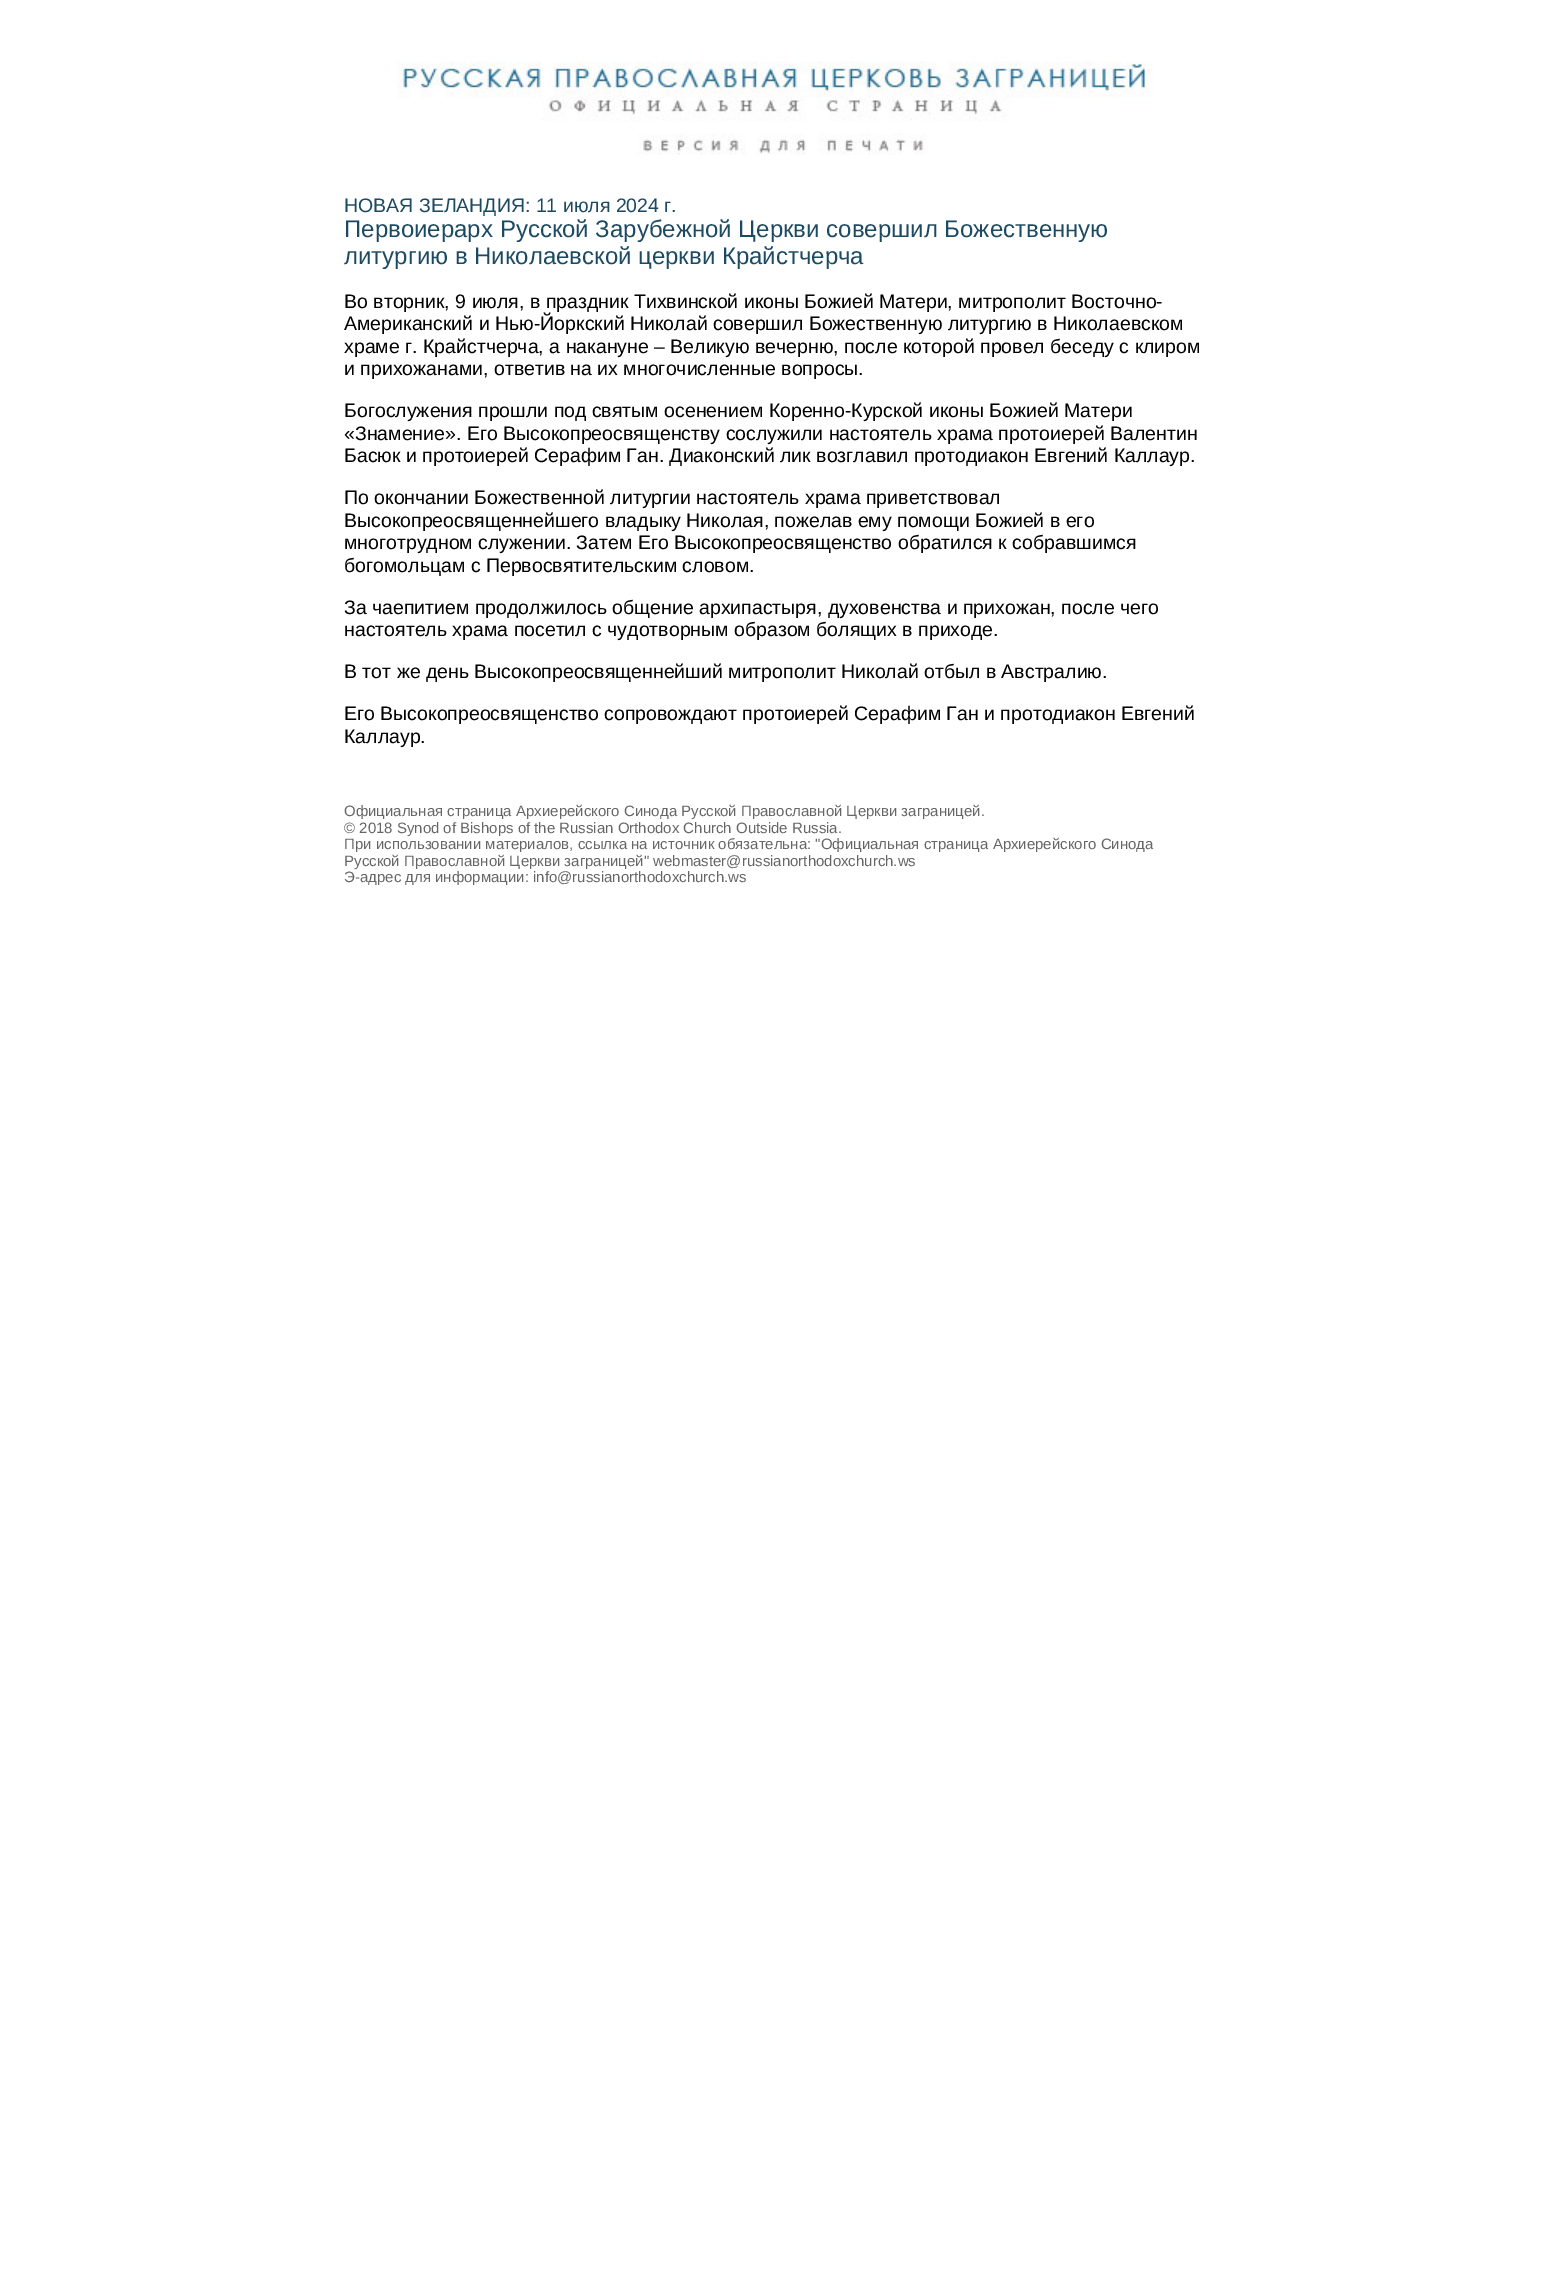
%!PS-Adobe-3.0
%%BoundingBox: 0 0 1551 2271
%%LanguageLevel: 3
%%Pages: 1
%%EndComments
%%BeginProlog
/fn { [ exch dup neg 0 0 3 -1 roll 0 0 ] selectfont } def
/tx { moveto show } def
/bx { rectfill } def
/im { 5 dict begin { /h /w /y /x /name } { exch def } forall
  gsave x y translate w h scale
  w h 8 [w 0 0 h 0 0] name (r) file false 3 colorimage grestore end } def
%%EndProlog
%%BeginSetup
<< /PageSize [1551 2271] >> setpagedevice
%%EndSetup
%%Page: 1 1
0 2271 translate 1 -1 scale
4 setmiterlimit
1 setgray
0 0 1551 2271 bx
(image0.raw) 397 61 757 94 im
/LiberationSans-Regular 19.5 fn
0.11 0.29 0.384 setrgbcolor
(НОВАЯ ЗЕЛАНДИЯ: 11 июля 2024 г.) 344 212 tx
/LiberationSans-Regular 24 fn
(Первоиерарх Русской Зарубежной Церкви совершил Божественную) 344 237 tx
(литургию в Николаевской церкви Крайстчерча) 344 264 tx
/LiberationSans-Regular 19.5 fn
0 setgray
(Во вторник, 9 июля, в праздник Тихвинской иконы Божией Матери, митрополит Восточно-) 344 308 tx
(Американский и Нью-Йоркский Николай совершил Божественную литургию в Николаевском) 344 330 tx
(храме г. Крайстчерча, а накануне – Великую вечерню, после которой провел беседу с клиром) 344 353 tx
(и прихожанами, ответив на их многочисленные вопросы.) 344 375 tx
(Богослужения прошли под святым осенением Коренно-Курской иконы Божией Матери) 344 417 tx
(«Знамение». Его Высокопреосвященству сослужили настоятель храма протоиерей Валентин) 344 440 tx
(Басюк и протоиерей Серафим Ган. Диаконский лик возглавил протодиакон Евгений Каллаур.) 344 462 tx
(По окончании Божественной литургии настоятель храма приветствовал) 344 504 tx
(Высокопреосвященнейшего владыку Николая, пожелав ему помощи Божией в его) 344 527 tx
(многотрудном служении. Затем Его Высокопреосвященство обратился к собравшимся) 344 549 tx
(богомольцам с Первосвятительским словом.) 344 572 tx
(За чаепитием продолжилось общение архипастыря, духовенства и прихожан, после чего) 344 614 tx
(настоятель храма посетил с чудотворным образом болящих в приходе.) 344 636 tx
(В тот же день Высокопреосвященнейший митрополит Николай отбыл в Австралию.) 344 678 tx
(Его Высокопреосвященство сопровождают протоиерей Серафим Ган и протодиакон Евгений) 344 720 tx
(Каллаур.) 344 743 tx
/LiberationSans-Regular 15 fn
0.4 setgray
(Официальная страница Архиерейского Синода Русской Православной Церкви заграницей.) 344 816 tx
(© 2018 Synod of Bishops of the Russian Orthodox Church Outside Russia.) 344 833 tx
(При использовании материалов, ссылка на источник обязательна: "Официальная страница Архиерейского Синода) 344 849 tx
(Русской Православной Церкви заграницей" webmaster@russianorthodoxchurch.ws) 344 866 tx
(Э-адрес для информации: info@russianorthodoxchurch.ws) 344 882 tx
showpage
%%EOF
